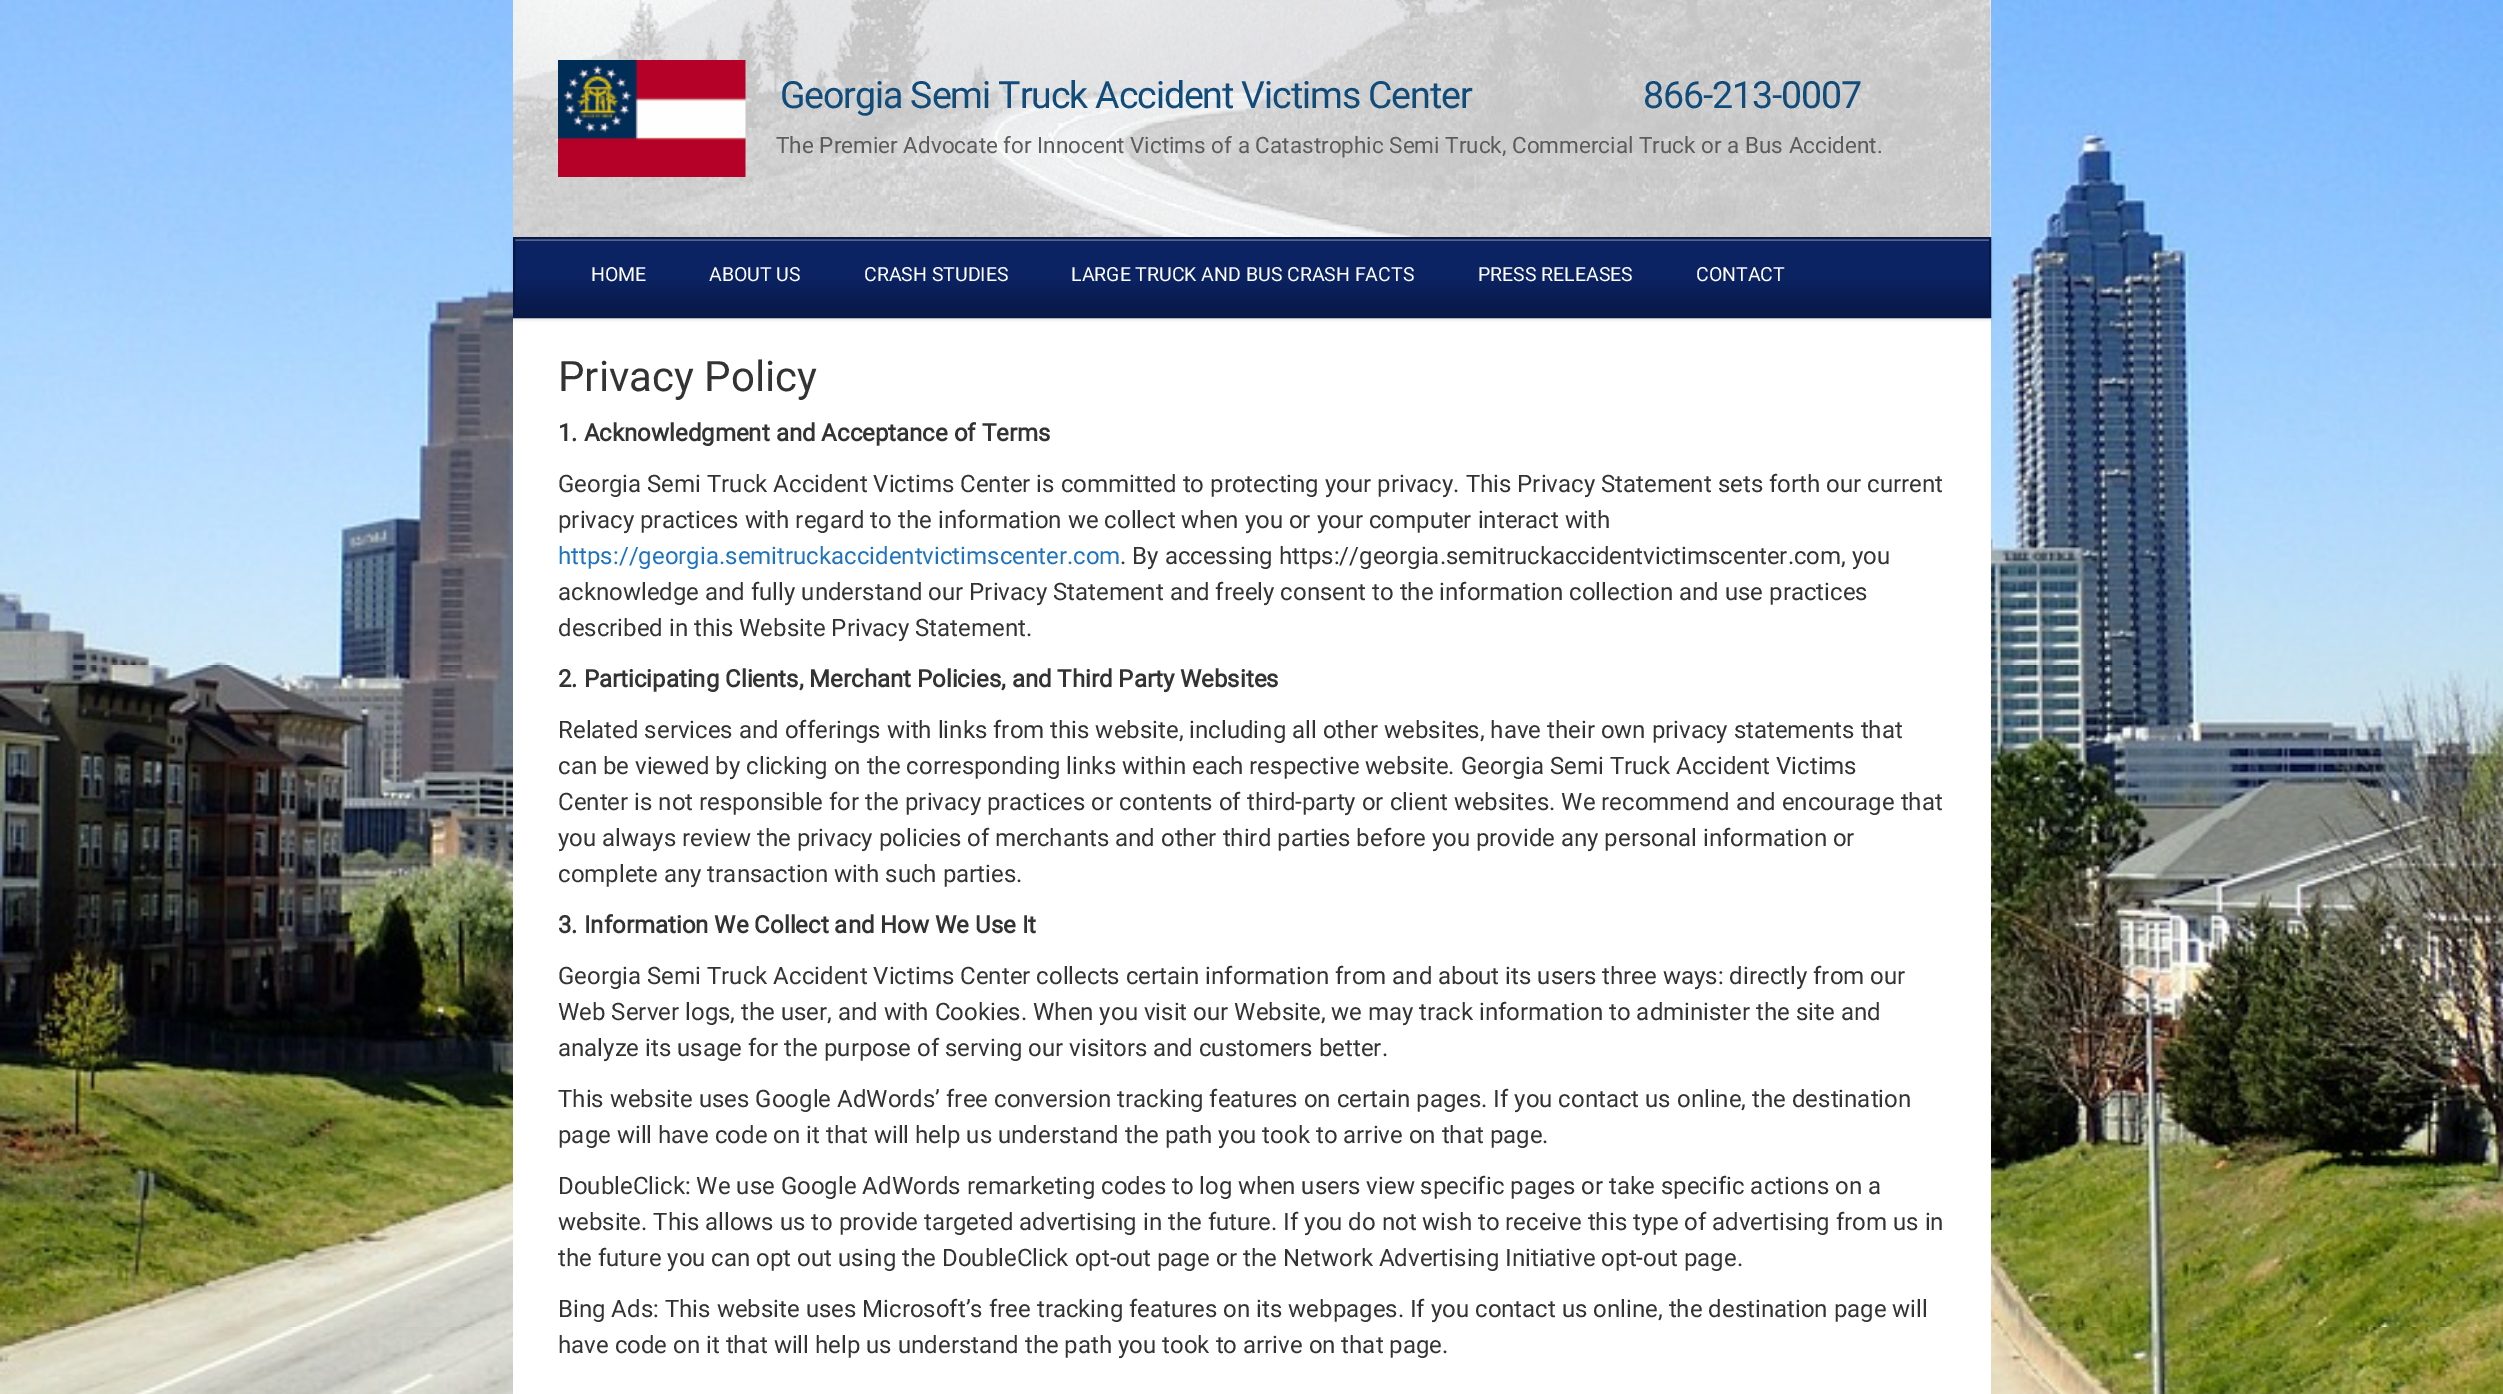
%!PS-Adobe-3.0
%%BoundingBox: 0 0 2503 1394
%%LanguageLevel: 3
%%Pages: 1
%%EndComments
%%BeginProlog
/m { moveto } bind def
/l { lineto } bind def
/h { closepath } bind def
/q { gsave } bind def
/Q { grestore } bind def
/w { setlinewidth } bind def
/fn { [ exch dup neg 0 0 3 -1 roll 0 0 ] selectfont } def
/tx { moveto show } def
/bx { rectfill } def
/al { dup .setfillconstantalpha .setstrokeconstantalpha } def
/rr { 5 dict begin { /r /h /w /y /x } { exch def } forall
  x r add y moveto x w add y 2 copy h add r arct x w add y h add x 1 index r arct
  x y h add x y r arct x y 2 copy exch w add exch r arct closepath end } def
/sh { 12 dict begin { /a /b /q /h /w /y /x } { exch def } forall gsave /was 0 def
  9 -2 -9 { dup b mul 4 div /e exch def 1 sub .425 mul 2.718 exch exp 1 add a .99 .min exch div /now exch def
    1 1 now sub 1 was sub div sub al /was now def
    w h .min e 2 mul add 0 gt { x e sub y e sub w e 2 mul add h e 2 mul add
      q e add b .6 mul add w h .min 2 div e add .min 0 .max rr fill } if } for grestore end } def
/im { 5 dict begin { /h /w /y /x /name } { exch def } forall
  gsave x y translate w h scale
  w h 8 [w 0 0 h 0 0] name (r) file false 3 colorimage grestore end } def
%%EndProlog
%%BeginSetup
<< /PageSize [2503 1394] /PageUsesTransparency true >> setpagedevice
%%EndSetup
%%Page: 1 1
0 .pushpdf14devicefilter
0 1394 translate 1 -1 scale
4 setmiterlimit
1 setgray
0 0 2503 1394 bx
(image0.raw) 0 0 2503 1394 im
0.976 setgray
1990 0 1 237 bx
1 setgray
513 318 1478 1076 bx
0 setgray
513 239 1478 81 0 1.5 0.1 sh
(image1.raw) 513 0 1478 237 im
(image2.raw) 558 60 188 117 im
/Roboto-Regular 37.5 fn
0.067 0.294 0.478 setrgbcolor
780 108 m -1.12 0 (Georgia Semi Truck Accident Victims Center                     866-213-0007) ashow
/Roboto-Regular 22.5 fn
0.357 setgray
(The Premier Advocate for Innocent Victims of a Catastrophic Semi Truck, Commercial Truck or a Bus Accident.) 776 153 tx
q 515 241 m 1989 241 l 1989 316 l 515 316 l h clip newpath
<< /ShadingType 2 /ColorSpace /DeviceRGB /Coords [1252 238 1252 317] /Extend [true true] /Function << /FunctionType 3 /Domain [0 1] /Functions [<< /FunctionType 2 /Domain [0 1] /C0 [0.043 0.137 0.388] /C1 [0.043 0.137 0.388] /N 1 >> << /FunctionType 2 /Domain [0 1] /C0 [0.043 0.137 0.388] /C1 [0.031 0.094 0.271] /N 1 >>] /Bounds [0.5] /Encode [0 1 0 1] >> >> shfill Q
0.329 0.396 0.573 setrgbcolor
515 239 1474 2 bx
0.031 0.094 0.271 setrgbcolor
2 w
514 238 1476 79 rectstroke
/Roboto-Regular 19.5 fn
1 setgray
(HOME) 591 281 tx
(ABOUT US) 709 281 tx
(CRASH STUDIES) 864 281 tx
(LARGE TRUCK AND BUS CRASH FACTS) 1071 281 tx
(PRESS RELEASES) 1478 281 tx
(CONTACT) 1696 281 tx
/Roboto-Regular 42 fn
0.2 setgray
(Privacy Policy) 558 391 tx
/Roboto-Bold 24 fn
(1. Acknowledgment and Acceptance of Terms) 558 441 tx
/Roboto-Regular 24 fn
(Georgia Semi Truck Accident Victims Center is committed to protecting your privacy. This Privacy Statement sets forth our current) 558 492 tx
(privacy practices with regard to the information we collect when you or your computer interact with) 558 528 tx
0.118 0.451 0.745 setrgbcolor
(https://georgia.semitruckaccidentvictimscenter.com) 558 564 tx
0.2 setgray
(. By accessing https://georgia.semitruckaccidentvictimscenter.com, you) 1120 564 tx
(acknowledge and fully understand our Privacy Statement and freely consent to the information collection and use practices) 558 600 tx
(described in this Website Privacy Statement.) 558 636 tx
/Roboto-Bold 24 fn
(2. Participating Clients, Merchant Policies, and Third Party Websites) 558 687 tx
/Roboto-Regular 24 fn
(Related services and offerings with links from this website, including all other websites, have their own privacy statements that) 558 738 tx
(can be viewed by clicking on the corresponding links within each respective website. Georgia Semi Truck Accident Victims) 558 774 tx
(Center is not responsible for the privacy practices or contents of third-party or client websites. We recommend and encourage that) 558 810 tx
(you always review the privacy policies of merchants and other third parties before you provide any personal information or) 558 846 tx
(complete any transaction with such parties.) 558 882 tx
/Roboto-Bold 24 fn
(3. Information We Collect and How We Use It) 558 933 tx
/Roboto-Regular 24 fn
(Georgia Semi Truck Accident Victims Center collects certain information from and about its users three ways: directly from our) 558 984 tx
(Web Server logs, the user, and with Cookies. When you visit our Website, we may track information to administer the site and) 558 1020 tx
(analyze its usage for the purpose of serving our visitors and customers better.) 558 1056 tx
(This website uses Google AdWords’ free conversion tracking features on certain pages. If you contact us online, the destination) 558 1107 tx
(page will have code on it that will help us understand the path you took to arrive on that page.) 558 1143 tx
(DoubleClick: We use Google AdWords remarketing codes to log when users view specific pages or take specific actions on a) 558 1194 tx
(website. This allows us to provide targeted advertising in the future. If you do not wish to receive this type of advertising from us in) 558 1230 tx
(the future you can opt out using the DoubleClick opt-out page or the Network Advertising Initiative opt-out page.) 558 1266 tx
(Bing Ads: This website uses Microsoft’s free tracking features on its webpages. If you contact us online, the destination page will) 558 1317 tx
(have code on it that will help us understand the path you took to arrive on that page.) 558 1353 tx
.poppdf14devicefilter showpage
%%EOF
